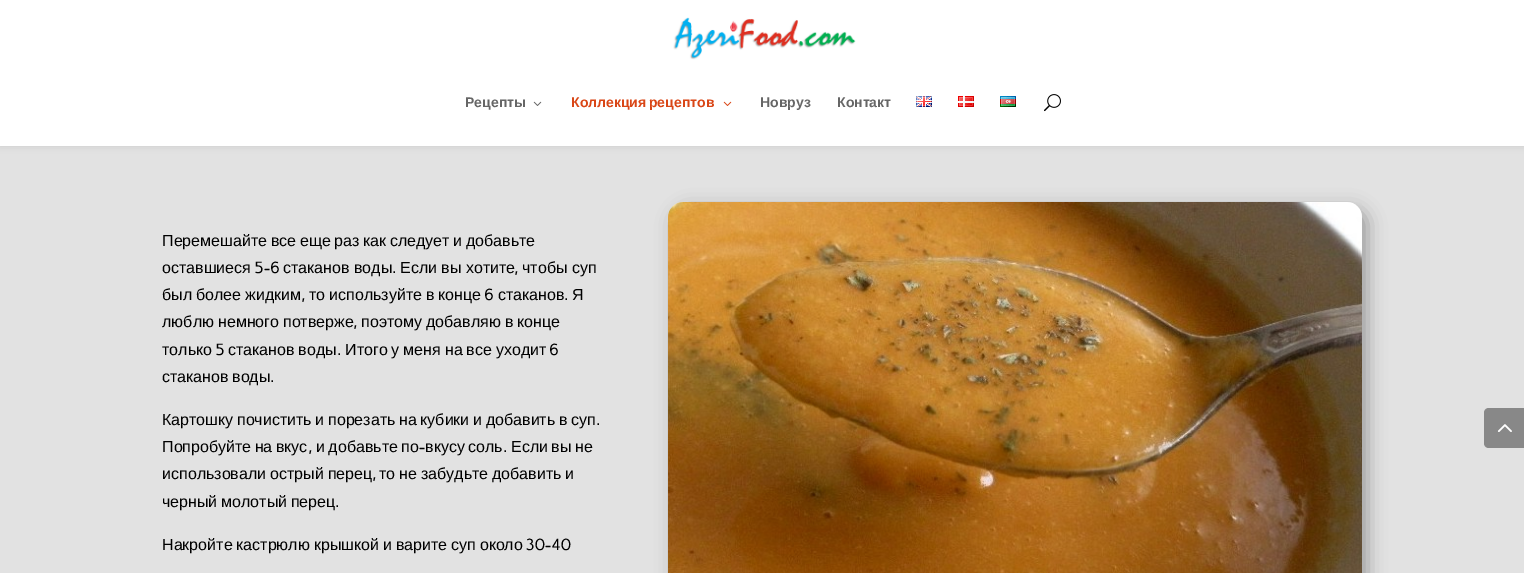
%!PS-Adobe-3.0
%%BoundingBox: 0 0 1524 573
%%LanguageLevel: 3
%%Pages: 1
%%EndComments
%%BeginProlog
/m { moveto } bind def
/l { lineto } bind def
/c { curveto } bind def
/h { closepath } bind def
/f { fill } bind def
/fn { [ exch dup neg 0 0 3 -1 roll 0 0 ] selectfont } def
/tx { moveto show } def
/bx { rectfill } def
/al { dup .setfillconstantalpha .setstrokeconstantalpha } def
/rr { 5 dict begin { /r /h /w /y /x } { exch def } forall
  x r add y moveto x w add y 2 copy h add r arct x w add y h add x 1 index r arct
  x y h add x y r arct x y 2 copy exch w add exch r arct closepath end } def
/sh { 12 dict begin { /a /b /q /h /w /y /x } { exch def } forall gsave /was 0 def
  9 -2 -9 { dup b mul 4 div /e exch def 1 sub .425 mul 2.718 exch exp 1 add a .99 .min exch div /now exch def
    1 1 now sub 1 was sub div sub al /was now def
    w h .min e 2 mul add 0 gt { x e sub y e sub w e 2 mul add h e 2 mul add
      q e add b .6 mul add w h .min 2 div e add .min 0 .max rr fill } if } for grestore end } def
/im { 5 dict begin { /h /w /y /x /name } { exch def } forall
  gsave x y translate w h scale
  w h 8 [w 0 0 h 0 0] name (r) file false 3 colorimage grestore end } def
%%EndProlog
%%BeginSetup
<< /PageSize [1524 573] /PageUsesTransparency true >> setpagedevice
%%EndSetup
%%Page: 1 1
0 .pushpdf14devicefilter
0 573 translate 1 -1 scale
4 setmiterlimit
0.886 setgray
0 0 1524 573 bx
0 setgray
0 0 1524 146 0 3.5 0.1 sh
1 setgray
0 0 1524 146 bx
(image0.raw) 673 17 183 43 im
/LiberationSans-Bold 14 fn
0.4 setgray
(Рецепты) 465 107 tx
(image1.raw) 533 101 9 5 im
0.851 0.275 0.086 setrgbcolor
571 107 m -1 0 32 (Коллекция рецептов) widthshow
(image2.raw) 723 101 9 5 im
0.4 setgray
(Новруз) 760 107 tx
(Контакт) 837 107 tx
(image3.raw) 916 96 16 11 im
(image4.raw) 958 96 16 11 im
(image5.raw) 1000 96 16 11 im
(image6.raw) 1044 94 17 18 im
/LiberationSans-Regular 16 fn
0 setgray
162 246 m -0.75 0 32 (Перемешайте все еще раз как следует и добавьте) widthshow
(оставшиеся) 162 273 tx
/Carme-Regular 16 fn
(5-6) 254 273 tx
/LiberationSans-Regular 16 fn
(стаканов воды) 283 273 tx
/Carme-Regular 16 fn
(.) 392 273 tx
/LiberationSans-Regular 16 fn
(Если вы хотите) 400 273 tx
/Carme-Regular 16 fn
(,) 514 273 tx
/LiberationSans-Regular 16 fn
(чтобы суп) 522 273 tx
162 300 m -0.5 0 32 (был более жидким) widthshow
/Carme-Regular 16 fn
(,) 301 300 tx
/LiberationSans-Regular 16 fn
309 300 m -0.5 0 32 (то используйте в конце) widthshow
/Carme-Regular 16 fn
(6) 484 300 tx
/LiberationSans-Regular 16 fn
(стаканов) 498 300 tx
/Carme-Regular 16 fn
(.) 564 300 tx
/LiberationSans-Regular 16 fn
(Я) 572 300 tx
162 327 m -0.5 0 32 (люблю немного потверже) widthshow
/Carme-Regular 16 fn
(,) 353 327 tx
/LiberationSans-Regular 16 fn
361 327 m -0.5 0 32 (поэтому добавляю в конце) widthshow
(только) 162 355 tx
/Carme-Regular 16 fn
(5) 215 355 tx
/LiberationSans-Regular 16 fn
228 355 m -0.5 0 32 (стаканов воды) widthshow
/Carme-Regular 16 fn
(.) 337 355 tx
/LiberationSans-Regular 16 fn
345 355 m -0.5 0 32 (Итого у меня на все уходит) widthshow
/Carme-Regular 16 fn
(6) 549 355 tx
/LiberationSans-Regular 16 fn
162 382 m -0.75 0 32 (стаканов воды) widthshow
/Carme-Regular 16 fn
(.) 270 382 tx
/LiberationSans-Regular 16 fn
162 425 m -0.75 0 32 (Картошку почистить и порезать на кубики и добавить в суп) widthshow
/Carme-Regular 16 fn
(.) 596 425 tx
/LiberationSans-Regular 16 fn
162 452 m -1 0 32 (Попробуйте на вкус) widthshow
316 452 m -1 0 32 (и добавьте по) widthshow
/Carme-Regular 16 fn
(-) 419 452 tx
/LiberationSans-Regular 16 fn
425 452 m -1 0 32 (вкусу соль) widthshow
511 452 m -1 0 32 (Если вы не) widthshow
/Carme-Regular 16 fn
(,) 308 452 tx
(.) 503 452 tx
/LiberationSans-Regular 16 fn
162 479 m -0.5 0 32 (использовали острый перец) widthshow
/Carme-Regular 16 fn
(,) 372 479 tx
/LiberationSans-Regular 16 fn
379 479 m -0.5 0 32 (то не забудьте добавить и) widthshow
162 507 m -0.75 0 32 (черный молотый перец) widthshow
/Carme-Regular 16 fn
(.) 335 507 tx
/LiberationSans-Regular 16 fn
162 550 m -0.5 0 32 (Накройте кастрюлю крышкой и варите суп около) widthshow
/Carme-Regular 16 fn
(30-40) 525 550 tx
674 208 694 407 15 9 0.3 sh
(image7.raw) 668 202 694 371 im
0.533 setgray
1489 408 m 1524 408 l 1524 448 l 1489 448 l 1486 448 1484 446 1484 443 c 1484 413 l 1484 410 1486 408 1489 408 c h f
(image8.raw) 1497 424 15 8 im
.poppdf14devicefilter showpage
%%EOF
